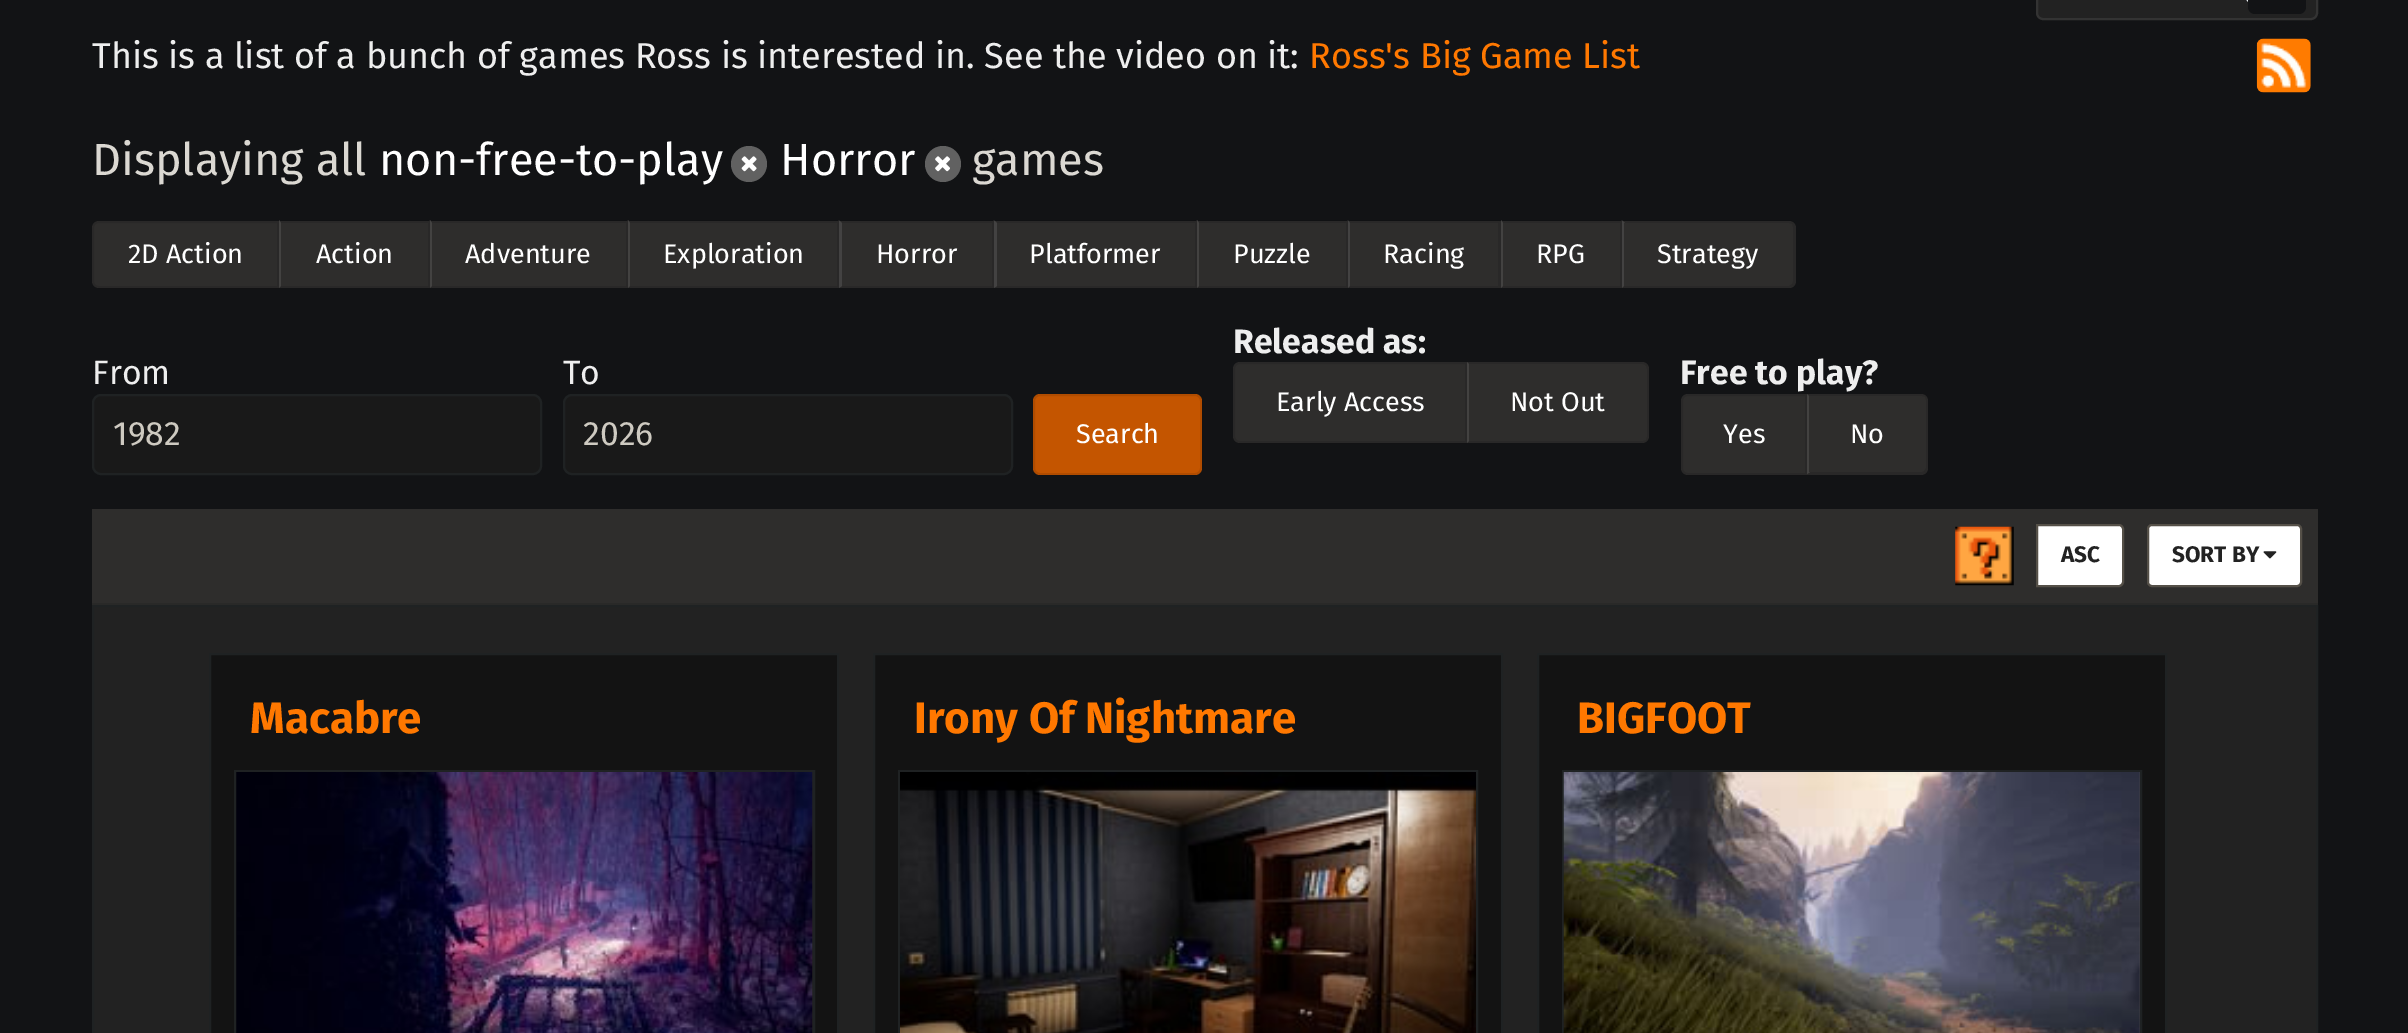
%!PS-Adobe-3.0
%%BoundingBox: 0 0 2408 1033
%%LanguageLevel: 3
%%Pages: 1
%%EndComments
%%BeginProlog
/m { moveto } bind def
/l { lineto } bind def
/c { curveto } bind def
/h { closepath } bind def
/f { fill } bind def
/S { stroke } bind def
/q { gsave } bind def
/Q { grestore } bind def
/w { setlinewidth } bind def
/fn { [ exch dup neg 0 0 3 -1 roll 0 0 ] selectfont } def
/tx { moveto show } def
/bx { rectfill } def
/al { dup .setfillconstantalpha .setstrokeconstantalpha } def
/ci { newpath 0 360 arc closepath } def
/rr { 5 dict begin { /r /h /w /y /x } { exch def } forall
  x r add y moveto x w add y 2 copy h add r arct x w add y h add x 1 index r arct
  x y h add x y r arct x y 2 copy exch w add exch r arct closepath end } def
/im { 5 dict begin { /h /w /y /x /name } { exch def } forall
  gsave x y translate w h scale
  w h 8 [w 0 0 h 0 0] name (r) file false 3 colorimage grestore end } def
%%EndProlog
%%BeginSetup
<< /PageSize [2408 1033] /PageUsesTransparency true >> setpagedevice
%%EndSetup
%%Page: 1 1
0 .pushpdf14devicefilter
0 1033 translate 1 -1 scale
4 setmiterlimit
0.071 0.075 0.082 setrgbcolor
0 0 2408 1033 bx
0.133 setgray
2037 -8 280 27 6 rr q f Q
0.2 setgray
2 w
S
0.929 0.949 0.969 setrgbcolor
2248 -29 m 2248 2 l 2236.5 -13.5 l h f
0.071 0.075 0.082 setrgbcolor
2248 -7 58 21 7 rr f
/FiraSans-Regular 36 fn
0.933 setgray
(This is a list of a bunch of games Ross is interested in. See the video on it:) 92 68 tx
1 0.471 0 setrgbcolor
(Ross's Big Game List) 1309 68 tx
(image0.raw) 2256 38 55 55 im
/FiraSans-Regular 45 fn
0.859 0.847 0.824 setrgbcolor
(Displaying all) 92 175 tx
1 setgray
(non-free-to-play) 379 175 tx
0.38 setgray
749 164 18 ci f
(image1.raw) 741 156 16 16 im
1 setgray
(Horror) 780 175 tx
0.38 setgray
943 164 18 ci f
(image2.raw) 935 156 15 16 im
0.859 0.847 0.824 setrgbcolor
(games) 972 175 tx
0.18 0.176 0.173 setrgbcolor
99 221 m 279 221 l 279 288 l 99 288 l 95 288 92 285 92 281 c 92 228 l 92 224 95 221 99 221 c h f
0.1 al
0 setgray
99 222 m 278 222 l 278 287 l 99 287 l 95.5 287 93 284.5 93 281 c 93 228 l 93 224.5 95.5 222 99 222 c h S
/FiraSans-Regular 27 fn
1 al
1 setgray
(2D Action) 128 263 tx
0.18 0.176 0.173 setrgbcolor
279 221 1343 67 bx
0.1 al
0 setgray
279 220 m 430 220 l 428 223 l 281 223 l h f
1 al
0.161 0.157 0.157 setrgbcolor
430 220 m 430 288 l 428 286 l 428 223 l h f
0.1 al
0 setgray
430 288 m 279 288 l 281 286 l 428 286 l h f
1 al
0.263 0.259 0.255 setrgbcolor
279 288 m 279 220 l 281 223 l 281 286 l h f
1 setgray
(Action) 316 263 tx
0.1 al
0 setgray
430 220 m 628 220 l 626 223 l 432 223 l h f
1 al
0.161 0.157 0.157 setrgbcolor
628 220 m 628 288 l 626 286 l 626 223 l h f
0.1 al
0 setgray
628 288 m 430 288 l 432 286 l 626 286 l h f
1 al
0.263 0.259 0.255 setrgbcolor
430 288 m 430 220 l 432 223 l 432 286 l h f
1 setgray
(Adventure) 465 263 tx
0.1 al
0 setgray
628 220 m 839 220 l 837 223 l 630 223 l h f
1 al
0.161 0.157 0.157 setrgbcolor
839 220 m 839 288 l 837 286 l 837 223 l h f
0.1 al
0 setgray
839 288 m 628 288 l 630 286 l 837 286 l h f
1 al
0.263 0.259 0.255 setrgbcolor
628 288 m 628 220 l 630 223 l 630 286 l h f
1 setgray
(Exploration) 663 263 tx
0.1 al
0 setgray
839 220 m 994 220 l 992 223 l 842 223 l h f
1 al
0.161 0.157 0.157 setrgbcolor
994 220 m 994 288 l 992 286 l 992 223 l h f
0.1 al
0 setgray
994 288 m 839 288 l 842 286 l 992 286 l h f
1 setgray
839 288 m 839 220 l 842 223 l 842 286 l h f
1 al
(Horror) 876 263 tx
0.1 al
0 setgray
994 220 m 1197 220 l 1195 223 l 997 223 l h f
1 al
0.161 0.157 0.157 setrgbcolor
1197 220 m 1197 288 l 1195 286 l 1195 223 l h f
0.1 al
0 setgray
1197 288 m 994 288 l 997 286 l 1195 286 l h f
1 setgray
994 288 m 994 220 l 997 223 l 997 286 l h f
1 al
(Platformer) 1029 263 tx
0.1 al
0 setgray
1197 220 m 1348 220 l 1346 223 l 1199 223 l h f
1 al
0.161 0.157 0.157 setrgbcolor
1348 220 m 1348 288 l 1346 286 l 1346 223 l h f
0.1 al
0 setgray
1348 288 m 1197 288 l 1199 286 l 1346 286 l h f
1 al
0.263 0.259 0.255 setrgbcolor
1197 288 m 1197 220 l 1199 223 l 1199 286 l h f
1 setgray
(Puzzle) 1233 263 tx
0.1 al
0 setgray
1348 220 m 1501 220 l 1498 223 l 1350 223 l h f
1501 220 m 1501 288 l 1498 286 l 1498 223 l h f
1 al
0.161 0.157 0.157 setrgbcolor
1501 288 m 1348 288 l 1350 286 l 1498 286 l h f
0.1 al
1 setgray
1348 288 m 1348 220 l 1350 223 l 1350 286 l h f
1 al
(Racing) 1383 263 tx
0.1 al
0 setgray
1501 220 m 1622 220 l 1620 223 l 1503 223 l h f
1 al
0.161 0.157 0.157 setrgbcolor
1622 220 m 1622 288 l 1620 286 l 1620 223 l h f
0.1 al
0 setgray
1622 288 m 1501 288 l 1503 286 l 1620 286 l h f
1 al
0.263 0.259 0.255 setrgbcolor
1501 288 m 1501 220 l 1503 223 l 1503 286 l h f
1 setgray
(RPG) 1536 263 tx
0.18 0.176 0.173 setrgbcolor
1622 221 m 1789 221 l 1793 221 1796 224 1796 228 c 1796 281 l 1796 285 1793 288 1789 288 c 1622 288 l h f
0.1 al
0 setgray
1622 220 m 1791 220 l 1794 222 l 1792 224 l 1789 223 l 1625 223 l h f
1796 283 m 1794 286 l 1792 284 l 1794 281 1793 274 1793 272 c 1793 227 l 1792 224 l 1794 222 l 1796 225 l h f
1622 288 m 1790 288 l 1794 286 l 1792 284 l 1789 286 l 1624 286 l h f
1 setgray
1624 223 m 1625 223 l 1622 220 l 1622 288 l 1624 286 l h f
1 al
(Strategy) 1657 263 tx
/FiraSans-Regular 33.75 fn
0.933 setgray
(From) 92 384 tx
0.098 setgray
93 395 448 79 8 rr q f Q
0.122 0.133 0.137 setrgbcolor
S
0.808 0.792 0.757 setrgbcolor
(1982) 113 445 tx
0.933 setgray
(To) 563 384 tx
0.098 setgray
564 395 448 79 8 rr q f Q
0.122 0.133 0.137 setrgbcolor
S
0.808 0.792 0.757 setrgbcolor
(2026) 583 445 tx
0.769 0.333 0 setrgbcolor
1033 394 169 81 7 rr f
0.1 al
0 setgray
1034 395 167 79 6 rr S
/FiraSans-Regular 27 fn
1 al
1 setgray
(Search) 1076 443 tx
/FiraSans-Bold 33.75 fn
0.933 setgray
(Released as:) 1233 353 tx
0.18 0.176 0.173 setrgbcolor
1240 362 m 1467 362 l 1467 443 l 1240 443 l 1236 443 1233 440 1233 436 c 1233 369 l 1233 365 1236 362 1240 362 c h f
0.1 al
0 setgray
1240 363 m 1466 363 l 1466 442 l 1240 442 l 1236.5 442 1234 439.5 1234 436 c 1234 369 l 1234 365.5 1236.5 363 1240 363 c h S
/FiraSans-Regular 27 fn
1 al
1 setgray
(Early Access) 1276 411 tx
0.18 0.176 0.173 setrgbcolor
1467 362 m 1642 362 l 1646 362 1649 365 1649 369 c 1649 436 l 1649 440 1646 443 1642 443 c 1467 443 l h f
0.1 al
0 setgray
1469 364 m 1467 362 l 1644 362 l 1647 364 l 1646 366 l 1645 365 1644 364 1642 364 c h f
1647 364 m 1648 365 1649 367 1649 369 c 1649 436 l 1649 438 1648 440 1647 441 c 1646 440 l 1647 437 l 1647 369 l 1646 366 l h f
1647 441 m 1646 442 1644 443 1642 443 c 1467 443 l 1469 441 l 1643 441 l 1646 440 l h f
1 al
0.263 0.259 0.255 setrgbcolor
1467 362 m 1467 443 l 1469 441 l 1469 364 l h f
1 setgray
(Not Out) 1510 411 tx
/FiraSans-Bold 33.75 fn
0.933 setgray
(Free to play?) 1680 384 tx
0.18 0.176 0.173 setrgbcolor
1688 394 m 1807 394 l 1807 475 l 1688 475 l 1684 475 1681 472 1681 468 c 1681 401 l 1681 397 1684 394 1688 394 c h f
0.1 al
0 setgray
1688 395 m 1806 395 l 1806 474 l 1688 474 l 1684.5 474 1682 471.5 1682 468 c 1682 401 l 1682 397.5 1684.5 395 1688 395 c h S
/FiraSans-Regular 27 fn
1 al
1 setgray
(Yes) 1723 443 tx
0.18 0.176 0.173 setrgbcolor
1807 394 m 1921 394 l 1925 394 1928 397 1928 401 c 1928 468 l 1928 472 1925 475 1921 475 c 1807 475 l h f
0.1 al
0 setgray
1807 394 m 1809 396 l 1922 396 l 1925 397 l 1926 396 l 1925 395 1924 394 1922 394 c h f
1926 396 m 1928 399 l 1928 457 l 1928 460 1930 469 1926 473 c 1924 471 l 1926 468 l 1926 400 l 1925 397 l h f
1807 475 m 1810 472 l 1922 472 l 1924 471 l 1926 473 l 1924 475 l h f
1 al
0.263 0.259 0.255 setrgbcolor
1809 396 m 1807 394 l 1807 474 l 1810 472 l 1809 472 l h f
1 setgray
(No) 1850 443 tx
0.18 0.176 0.173 setrgbcolor
92 509 2226 94 bx
0.161 0.161 0.157 setrgbcolor
92 603 2226 2 bx
(image3.raw) 1955 526 59 60 im
1 setgray
2037 525 m 2119 525 l 2121 525 2123 527 2123 529 c 2123 582 l 2123 584 2121 586 2119 586 c 2037 586 l h q f Q
0.333 0.314 0.282 setrgbcolor
S
/FiraSans-Bold 22.5 fn
0.133 setgray
(ASC) 2061 562 tx
1 setgray
2148 525 153 61 4 rr q f Q
0.333 0.314 0.282 setrgbcolor
S
0.133 setgray
(SORT BY) 2172 562 tx
(image4.raw) 2263 551 14 8 im
93 606 m 2317 606 l 2317 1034 l 93 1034 l h q f Q
0.122 0.133 0.137 setrgbcolor
S
0.075 setgray
210 654 m 838 654 l 838 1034 l 210 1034 l h q f Q
0.122 0.133 0.137 setrgbcolor
S
/FiraSans-Bold 43.9 fn
1 0.471 0 setrgbcolor
(Macabre) 250 733 tx
0.133 setgray
235 771 m 814 771 l 814 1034 l 235 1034 l h q f Q
0.122 0.133 0.137 setrgbcolor
S
(image5.raw) 236 772 577 261 im
0.075 setgray
874 654 m 1502 654 l 1502 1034 l 874 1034 l h q f Q
0.122 0.133 0.137 setrgbcolor
S
1 0.471 0 setrgbcolor
(Irony Of Nightmare) 914 733 tx
0.122 0.133 0.137 setrgbcolor
899 771 578 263 rectstroke
(image6.raw) 900 772 576 261 im
0.075 setgray
1538 654 m 2166 654 l 2166 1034 l 1538 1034 l h q f Q
0.122 0.133 0.137 setrgbcolor
S
1 0.471 0 setrgbcolor
(BIGFOOT) 1577 733 tx
0.122 0.133 0.137 setrgbcolor
1563 771 578 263 rectstroke
(image7.raw) 1563 772 577 261 im
.poppdf14devicefilter showpage
%%EOF
